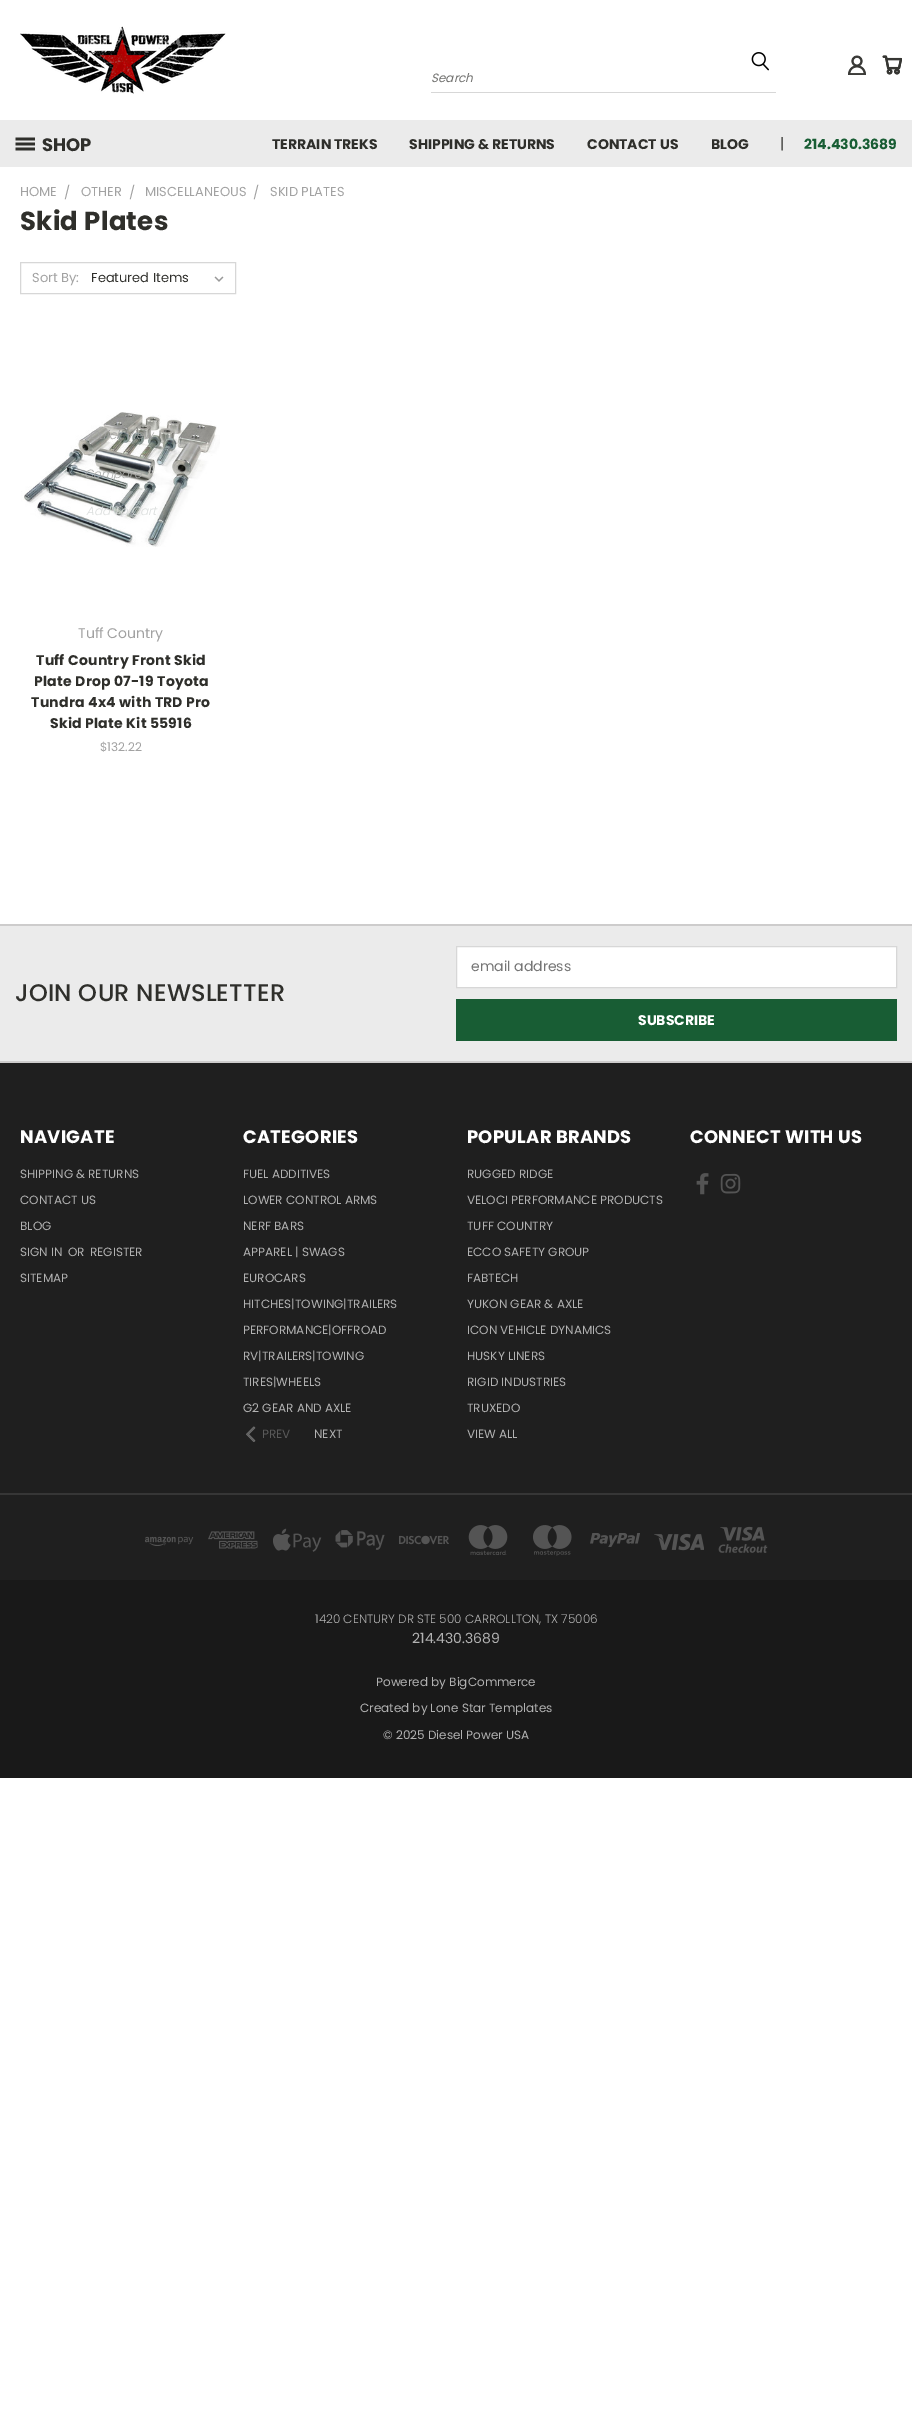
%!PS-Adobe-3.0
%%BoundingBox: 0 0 912 2413
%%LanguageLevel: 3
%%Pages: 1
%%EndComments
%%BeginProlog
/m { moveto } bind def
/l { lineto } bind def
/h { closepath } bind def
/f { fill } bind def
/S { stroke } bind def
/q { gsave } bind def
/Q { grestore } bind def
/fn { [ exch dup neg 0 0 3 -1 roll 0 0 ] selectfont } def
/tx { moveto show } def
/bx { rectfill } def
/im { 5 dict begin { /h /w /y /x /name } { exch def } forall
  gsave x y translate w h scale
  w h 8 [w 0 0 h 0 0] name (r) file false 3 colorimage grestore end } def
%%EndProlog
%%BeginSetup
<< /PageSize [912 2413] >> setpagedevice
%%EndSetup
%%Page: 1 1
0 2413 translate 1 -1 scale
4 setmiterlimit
1 setgray
0 0 912 2413 bx
(image0.raw) 20 26 206 68 im
(image1.raw) 848 55 18 20 im
(image2.raw) 882 55 20 20 im
(image3.raw) 751 52 18 19 im
0.843 setgray
431 92 345 1 bx
/Poppins-Italic 12 fn
0.439 0.439 0.431 setrgbcolor
(Search) 431 82 tx
0.922 setgray
0 120 912 47 bx
(image4.raw) 15 137 20 14 im
/Poppins-Bold 18 fn
0.184 0.184 0.169 setrgbcolor
(SHOP) 42 151 tx
/Poppins-Bold 14 fn
(TERRAIN TREKS) 272 149 tx
(SHIPPING & RETURNS) 409 149 tx
(CONTACT US) 587 149 tx
(BLOG) 711 149 tx
/Poppins-Regular 15 fn
(|) 780 149 tx
/Poppins-Bold 14 fn
0.094 0.365 0.204 setrgbcolor
(214.430.3689) 804 149 tx
/Poppins-Regular 13 fn
0.635 setgray
(HOME) 20 196 tx
(/) 64 197 tx
(OTHER) 81 196 tx
(/) 129 197 tx
(MISCELLANEOUS) 145 196 tx
(/) 253 197 tx
(SKID PLATES) 270 196 tx
/Poppins-Bold 26 fn
0.184 0.184 0.169 setrgbcolor
20 230 m 0.25 0 (Skid Plates) ashow
0.843 setgray
20.5 262.5 215 31 rectstroke
/Poppins-Regular 13 fn
0.635 setgray
(Sort By:) 32 282 tx
(image5.raw) 214 276 10 6 im
0.184 0.184 0.169 setrgbcolor
(Featured Items) 91 282 tx
(image6.raw) 21 412 199 135 im
/Poppins-LightItalic 12 fn
0.635 setgray
(Quick View) 89 439 tx
0.671 0.678 0.671 setrgbcolor
(Compare) 84 478 tx
0.859 0.871 0.867 setrgbcolor
(Add To Cart) 86 515 tx
/Poppins-Regular 14 fn
0.635 setgray
(Tuff Country) 78 638 tx
/Poppins-Bold 14 fn
0.184 0.184 0.169 setrgbcolor
36 665 m 0.25 0 (Tuff Country Front Skid) ashow
34 686 m 0.25 0 (Plate Drop 07-19 Toyota) ashow
31 707 m 0.25 0 (Tundra 4x4 with TRD Pro) ashow
50 728 m 0.25 0 (Skid Plate Kit 55916) ashow
/Poppins-Regular 12 fn
0.635 setgray
($132.22) 100 751 tx
0.922 setgray
0 926 912 135 bx
0.804 0.8 0.8 setrgbcolor
0 924 912 2 bx
/Poppins-Medium 24 fn
0.184 0.184 0.169 setrgbcolor
15 1001 m 0.25 0 (JOIN OUR NEWSLETTER) ashow
1 setgray
456.5 946.5 m 896.5 946.5 l 896.5 987.5 l 456.5 987.5 l h q f Q
0.843 setgray
S
/Poppins-Regular 14 fn
0.459 setgray
(email address) 471 971 tx
0.094 0.365 0.204 setrgbcolor
456 999 441 42 bx
/Poppins-Bold 14 fn
1 setgray
(SUBSCRIBE) 638 1025 tx
0.122 setgray
0 1063 912 517 bx
0.804 0.8 0.8 setrgbcolor
0 1061 912 2 bx
/Poppins-Bold 18 fn
1 setgray
20 1143 m 0.25 0 (NAVIGATE) ashow
/Poppins-Regular 12 fn
0.698 setgray
(SHIPPING & RETURNS) 20 1178 tx
(CONTACT US) 20 1204 tx
(BLOG) 20 1230 tx
(SIGN IN) 20 1256 tx
(OR) 68 1256 tx
(REGISTER) 90 1256 tx
(SITEMAP) 20 1282 tx
/Poppins-Bold 18 fn
1 setgray
243 1143 m 0.25 0 (CATEGORIES) ashow
/Poppins-Regular 12 fn
0.698 setgray
(FUEL ADDITIVES) 243 1178 tx
(LOWER CONTROL ARMS) 243 1204 tx
(NERF BARS) 243 1230 tx
(APPAREL | SWAGS) 243 1256 tx
(EUROCARS) 243 1282 tx
(HITCHES|TOWING|TRAILERS) 243 1308 tx
(PERFORMANCE|OFFROAD) 243 1334 tx
(RV|TRAILERS|TOWING) 243 1360 tx
(TIRES|WHEELS) 243 1386 tx
(G2 GEAR AND AXLE) 243 1412 tx
(image7.raw) 246 1426 10 16 im
0.353 setgray
(PREV) 262 1438 tx
0.698 setgray
(NEXT) 314 1438 tx
/Poppins-Bold 18 fn
1 setgray
467 1143 m 0.25 0 (POPULAR BRANDS) ashow
/Poppins-Regular 12 fn
0.698 setgray
(RUGGED RIDGE) 467 1178 tx
(VELOCI PERFORMANCE PRODUCTS) 467 1204 tx
(TUFF COUNTRY) 467 1230 tx
(ECCO SAFETY GROUP) 467 1256 tx
(FABTECH) 467 1282 tx
(YUKON GEAR & AXLE) 467 1308 tx
(ICON VEHICLE DYNAMICS) 467 1334 tx
(HUSKY LINERS) 467 1360 tx
(RIGID INDUSTRIES) 467 1386 tx
(TRUXEDO) 467 1412 tx
(VIEW ALL) 467 1438 tx
/Poppins-Bold 18 fn
1 setgray
690 1143 m 0.25 0 (CONNECT WITH US) ashow
(image8.raw) 696 1173 13 22 im
(image9.raw) 720 1173 21 21 im
0.212 setgray
0 1493 912 2 bx
(image10.raw) 145 1536 49 10 im
(image11.raw) 208 1531 50 18 im
(image12.raw) 273 1528 49 24 im
(image13.raw) 335 1530 50 20 im
(image14.raw) 399 1535 50 10 im
(image15.raw) 468 1525 40 30 im
(image16.raw) 533 1525 39 31 im
(image17.raw) 590 1533 50 14 im
(image18.raw) 654 1533 50 18 im
(image19.raw) 718 1526 50 27 im
0.098 setgray
0 1580 912 198 bx
/Poppins-Light 12 fn
0.698 setgray
(1420 CENTURY DR STE 500 CARROLLTON, TX 75006) 315 1623 tx
/Poppins-Regular 14 fn
(214.430.3689) 412 1643 tx
/Poppins-Regular 12 fn
(Powered by BigCommerce) 376 1686 tx
(Created by Lone Star Templates) 360 1712 tx
(© 2025 Diesel Power USA) 383 1739 tx
showpage
%%EOF
